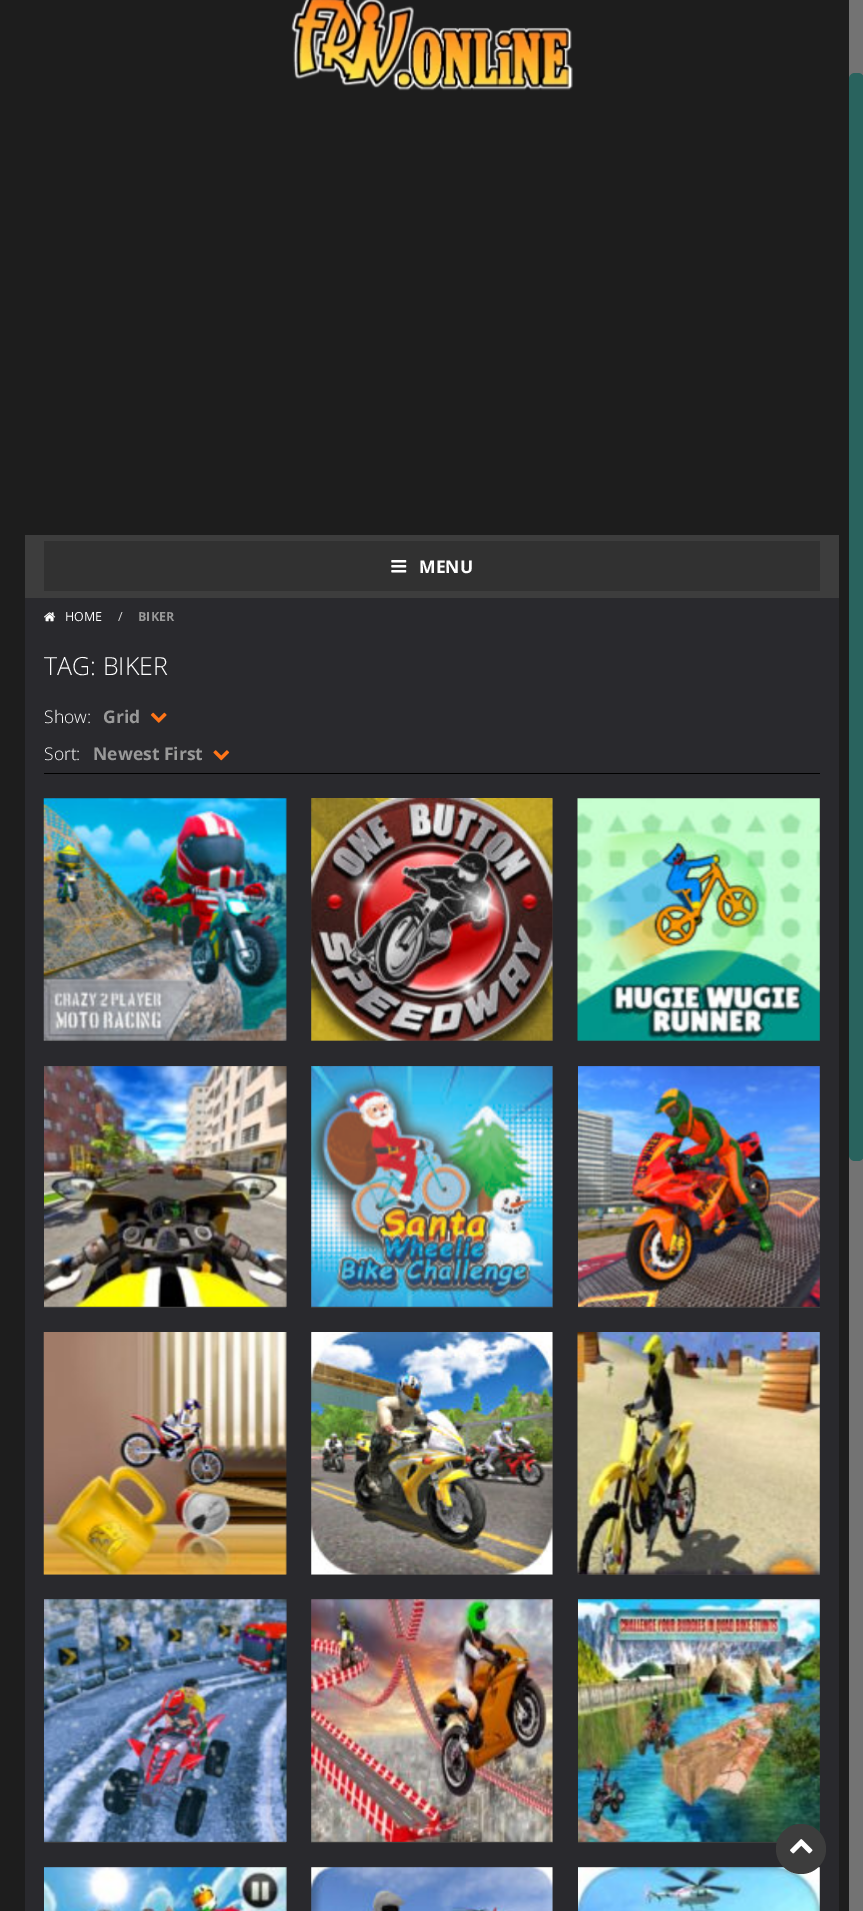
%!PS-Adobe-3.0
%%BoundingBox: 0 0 863 1911
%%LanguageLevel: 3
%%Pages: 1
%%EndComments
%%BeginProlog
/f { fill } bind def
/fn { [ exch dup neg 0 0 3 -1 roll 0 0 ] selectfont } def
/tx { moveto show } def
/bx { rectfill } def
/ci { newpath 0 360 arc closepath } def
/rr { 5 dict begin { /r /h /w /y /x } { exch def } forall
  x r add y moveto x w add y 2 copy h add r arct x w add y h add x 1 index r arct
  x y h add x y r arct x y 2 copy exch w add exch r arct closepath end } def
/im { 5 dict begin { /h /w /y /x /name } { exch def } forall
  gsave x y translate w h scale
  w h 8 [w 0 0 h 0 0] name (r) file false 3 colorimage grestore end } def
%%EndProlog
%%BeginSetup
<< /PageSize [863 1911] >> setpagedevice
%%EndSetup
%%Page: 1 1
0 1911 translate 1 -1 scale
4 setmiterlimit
0.114 setgray
0 0 863 1911 bx
(image0.raw) 291 0 282 91 im
0.239 setgray
25 535 814 63 bx
0.192 setgray
44 541 776 50 bx
(image1.raw) 391 560 16 13 im
/OpenSans-Bold 17.5 fn
1 setgray
(MENU) 419 573 tx
0.161 0.161 0.176 setrgbcolor
25 598 814 1313 bx
(image2.raw) 44 612 12 10 im
/OpenSans-Regular 12.5 fn
1 setgray
(HOME) 65 621 tx
0.867 setgray
(/) 118 621 tx
/OpenSans-Bold 12.5 fn
0.6 setgray
(BIKER) 138 621 tx
0 setgray
44 773 776 1 bx
/OpenSans-Light 25 fn
1 setgray
(TAG: BIKER) 44 675 tx
/OpenSans-Light 17.5 fn
(Show:) 44 723 tx
/OpenSans-Bold 17.5 fn
0.6 setgray
(Grid) 103 723 tx
(image3.raw) 150 712 17 11 im
/OpenSans-Light 17.5 fn
1 setgray
(Sort:) 44 760 tx
/OpenSans-Bold 17.5 fn
0.6 setgray
(Newest First) 93 760 tx
(image4.raw) 213 750 17 11 im
0.239 setgray
44 799 242 242 bx
(image5.raw) 43 798 244 243 im
311 799 242 242 bx
(image6.raw) 311 798 242 243 im
578 799 242 242 bx
(image7.raw) 577 798 243 243 im
44 1066 242 242 bx
(image8.raw) 44 1066 243 241 im
311 1066 242 242 bx
(image9.raw) 311 1066 242 241 im
578 1066 242 242 bx
(image10.raw) 578 1066 242 241 im
44 1333 242 242 bx
(image11.raw) 43 1332 244 243 im
311 1333 242 242 bx
(image12.raw) 311 1332 242 243 im
578 1333 242 242 bx
(image13.raw) 577 1332 243 243 im
44 1600 242 243 bx
(image14.raw) 44 1599 243 243 im
311 1600 242 243 bx
(image15.raw) 311 1599 242 243 im
578 1600 242 243 bx
(image16.raw) 578 1599 242 243 im
(image17.raw) 44 1867 243 44 im
311 1868 242 43 bx
(image18.raw) 311 1867 242 44 im
(image19.raw) 578 1867 242 44 im
0.451 setgray
849 0 14 1911 bx
0.161 0.388 0.369 setrgbcolor
849 73 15 1088 6 rr f
0.239 setgray
801 1849 25 ci f
(image20.raw) 790 1839 23 15 im
showpage
%%EOF
